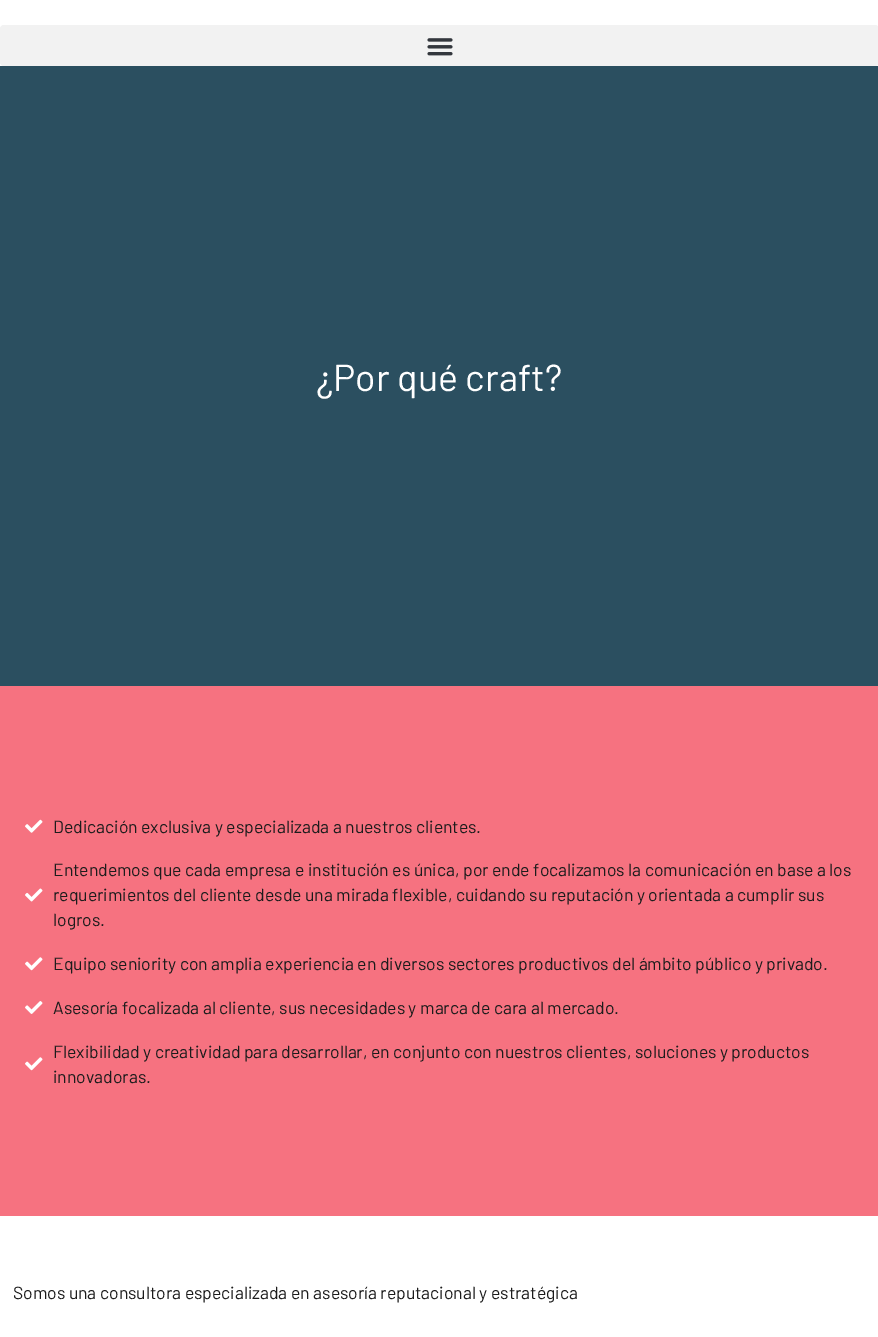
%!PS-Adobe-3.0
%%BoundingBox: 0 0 878 1337
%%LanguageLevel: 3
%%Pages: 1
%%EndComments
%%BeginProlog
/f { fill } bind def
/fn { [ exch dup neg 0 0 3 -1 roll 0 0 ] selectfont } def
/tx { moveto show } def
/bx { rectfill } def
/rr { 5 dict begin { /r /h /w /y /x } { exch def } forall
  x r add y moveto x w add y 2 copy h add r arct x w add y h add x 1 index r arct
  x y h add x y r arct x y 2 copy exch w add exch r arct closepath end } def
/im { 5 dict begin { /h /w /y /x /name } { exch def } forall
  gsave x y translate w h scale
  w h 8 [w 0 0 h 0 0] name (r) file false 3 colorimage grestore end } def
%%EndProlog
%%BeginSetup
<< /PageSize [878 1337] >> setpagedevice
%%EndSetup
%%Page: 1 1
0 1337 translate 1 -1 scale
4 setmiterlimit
1 setgray
0 0 878 1337 bx
0.949 setgray
0 25 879 41 4 rr f
(image0.raw) 427 38 26 18 im
0.169 0.31 0.376 setrgbcolor
0 66 878 620 bx
/Barlow-Regular 37.5 fn
1 setgray
(¿Por qué craft?) 316 391 tx
0.965 0.447 0.502 setrgbcolor
0 686 878 530 bx
(image1.raw) 25 819 18 14 im
/Barlow-Regular 17.5 fn
0.11 setgray
(Dedicación exclusiva y especializada a nuestros clientes.) 53 833 tx
(image2.raw) 25 888 18 14 im
(Entendemos que cada empresa e institución es única, por ende focalizamos la comunicación en base a los) 53 876 tx
(requerimientos del cliente desde una mirada flexible, cuidando su reputación y orientada a cumplir sus) 53 901 tx
(logros.) 53 926 tx
(image3.raw) 25 957 18 14 im
(Equipo seniority con amplia experiencia en diversos sectores productivos del ámbito público y privado.) 53 970 tx
(image4.raw) 25 1001 18 13 im
(Asesoría focalizada al cliente, sus necesidades y marca de cara al mercado.) 53 1014 tx
(image3.raw) 25 1057 18 14 im
(Flexibilidad y creatividad para desarrollar, en conjunto con nuestros clientes, soluciones y productos) 53 1058 tx
(innovadoras.) 53 1083 tx
(Somos una consultora especializada en asesoría reputacional y estratégica) 13 1299 tx
showpage
%%EOF
